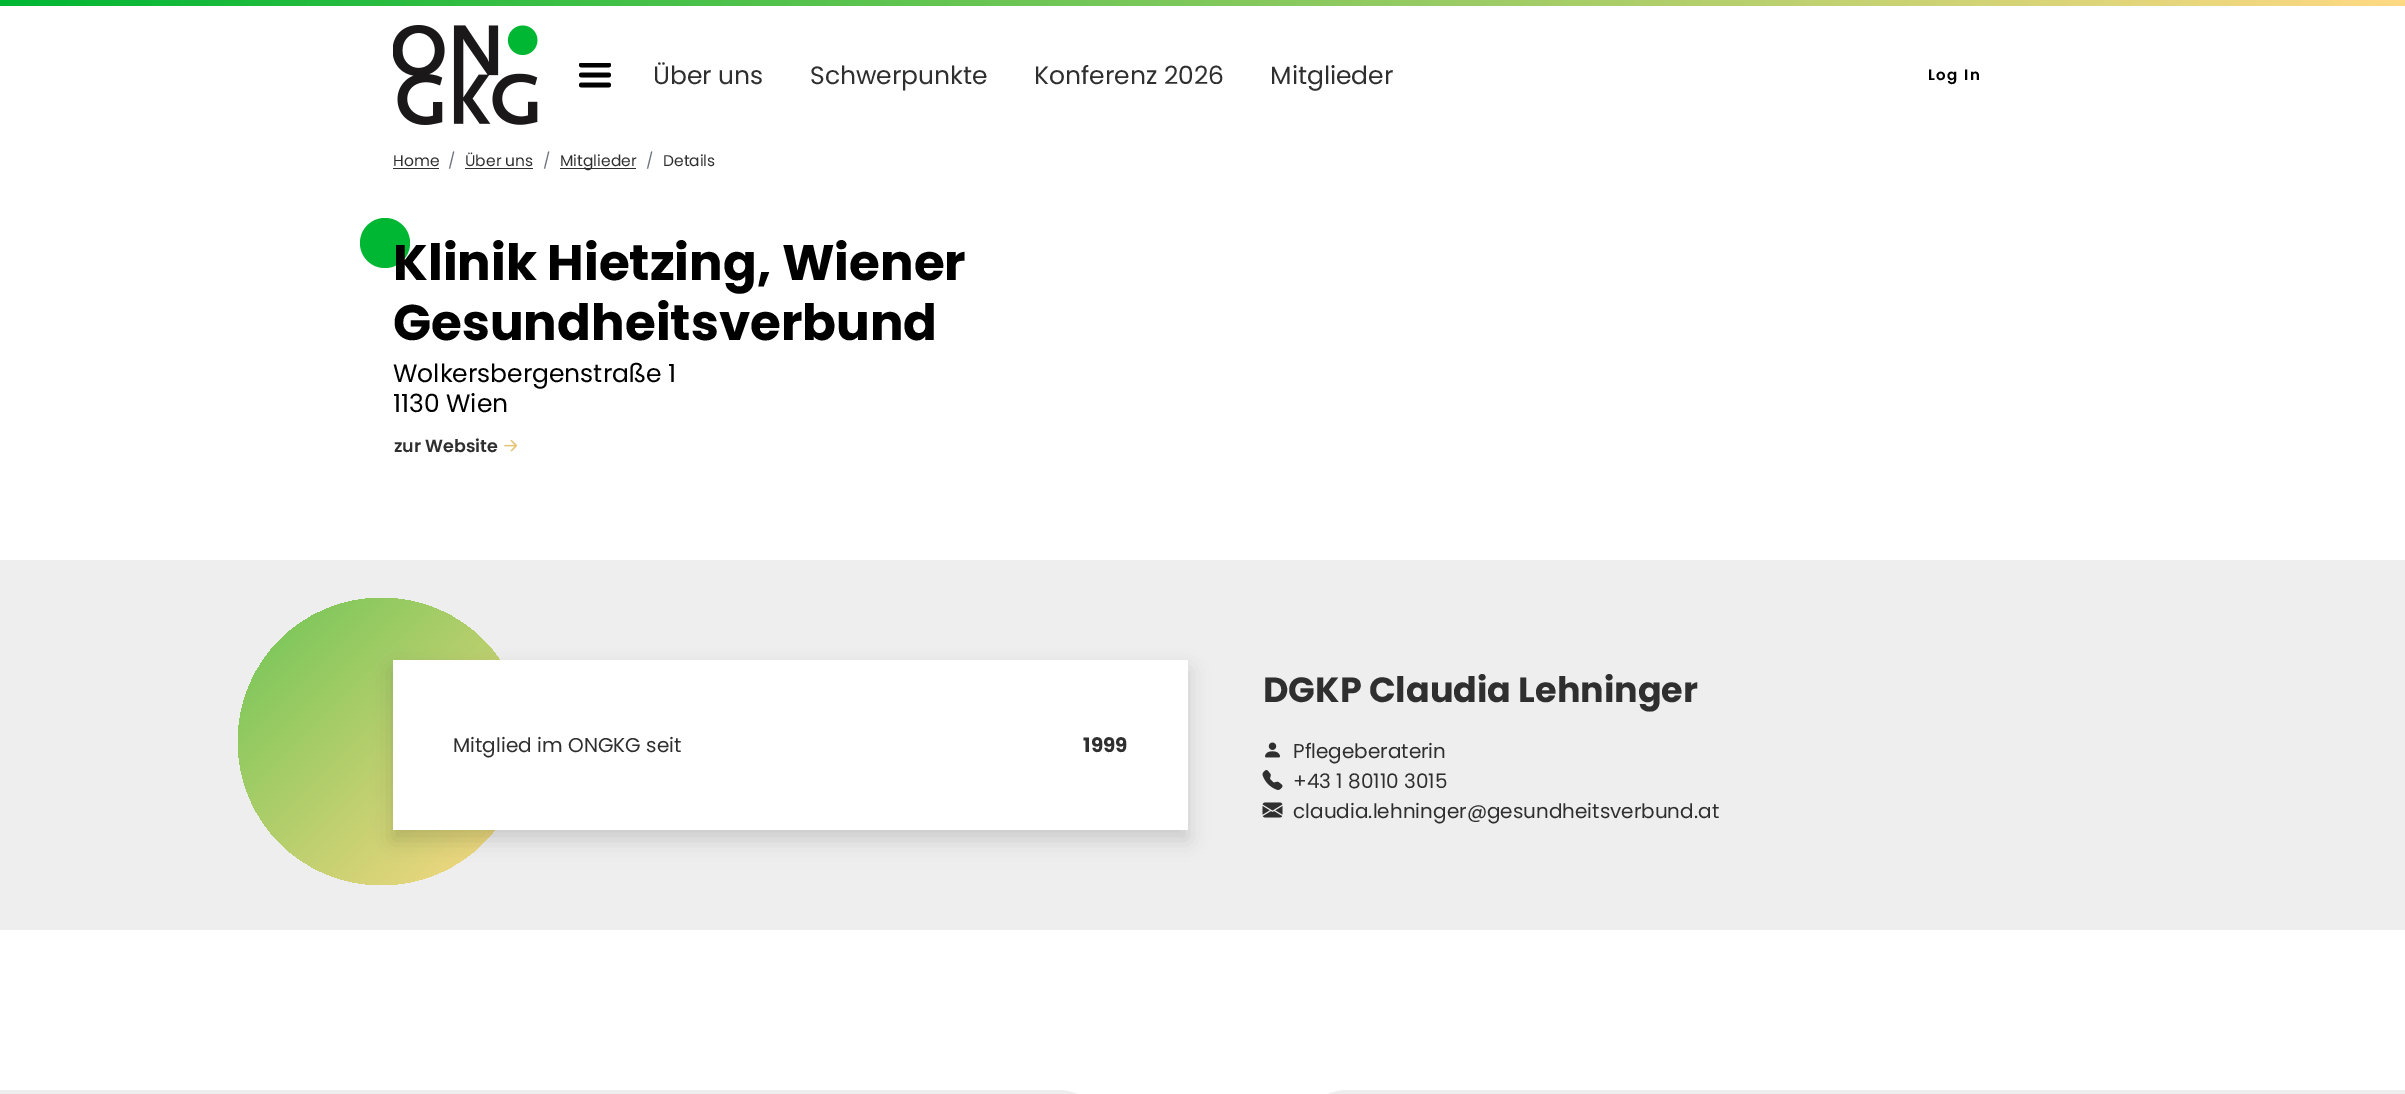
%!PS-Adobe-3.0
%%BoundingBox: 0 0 2405 1094
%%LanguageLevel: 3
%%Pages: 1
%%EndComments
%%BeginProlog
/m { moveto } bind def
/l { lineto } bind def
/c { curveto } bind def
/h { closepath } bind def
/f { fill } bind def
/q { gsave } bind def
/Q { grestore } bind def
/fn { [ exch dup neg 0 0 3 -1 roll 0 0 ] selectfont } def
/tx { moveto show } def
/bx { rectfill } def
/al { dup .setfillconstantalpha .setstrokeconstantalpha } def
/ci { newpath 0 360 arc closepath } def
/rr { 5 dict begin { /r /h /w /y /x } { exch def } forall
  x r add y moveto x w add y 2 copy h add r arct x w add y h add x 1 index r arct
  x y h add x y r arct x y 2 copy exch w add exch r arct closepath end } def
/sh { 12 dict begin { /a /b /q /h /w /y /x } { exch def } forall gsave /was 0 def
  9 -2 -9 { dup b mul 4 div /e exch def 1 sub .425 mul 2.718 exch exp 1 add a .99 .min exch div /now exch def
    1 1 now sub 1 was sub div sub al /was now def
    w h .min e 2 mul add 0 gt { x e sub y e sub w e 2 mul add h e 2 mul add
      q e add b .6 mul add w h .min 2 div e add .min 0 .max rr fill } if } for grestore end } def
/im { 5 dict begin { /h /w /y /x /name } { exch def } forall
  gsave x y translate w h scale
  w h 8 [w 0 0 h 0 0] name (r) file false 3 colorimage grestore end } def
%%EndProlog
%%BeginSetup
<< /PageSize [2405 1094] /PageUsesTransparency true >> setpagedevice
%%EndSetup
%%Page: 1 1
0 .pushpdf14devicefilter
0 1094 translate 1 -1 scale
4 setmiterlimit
1 setgray
0 0 2405 1094 bx
q 0 0 m 2405 0 l 2405 6 l 0 6 l h clip newpath
<< /ShadingType 2 /ColorSpace /DeviceRGB /Coords [0 3.1 2405 3.1] /Extend [true true] /Function << /FunctionType 2 /Domain [0 1] /C0 [0 0.718 0.2] /C1 [1 0.851 0.518] /N 1 >> >> shfill Q
(image0.raw) 393 25 145 100 im
(image1.raw) 579 63 32 25 im
/Poppins-Regular 25 fn
0.184 setgray
(Über uns) 653 84 tx
(Schwerpunkte) 810 84 tx
(Konferenz 2026) 1034 84 tx
(Mitglieder) 1270 84 tx
/Poppins-SemiBold 15 fn
0 setgray
1928 80 m 1.5 0 (Log In) ashow
/Poppins-Regular 15.5 fn
0.184 setgray
(Home) 393 166 tx
393 168 46 1 bx
0.424 0.459 0.49 setrgbcolor
(/) 448 166 tx
0.184 setgray
(Über uns) 465 166 tx
465 168 68 1 bx
0.424 0.459 0.49 setrgbcolor
(/) 543 166 tx
0.184 setgray
560 168 76 1 bx
(Mitglieder) 560 166 tx
0.424 0.459 0.49 setrgbcolor
(/) 646 166 tx
0.184 setgray
(Details) 663 166 tx
0 0.718 0.2 setrgbcolor
385 243 25 ci f
/Poppins-Bold 50 fn
0 setgray
(Klinik Hietzing, Wiener) 393 280 tx
(Gesundheitsverbund) 393 340 tx
/Poppins-Regular 25 fn
(Wolkersbergenstraße 1) 393 382 tx
(1130 Wien) 393 412 tx
/Poppins-SemiBold 17.5 fn
0.184 setgray
(zur Website) 394 452 tx
(image2.raw) 504 439 14 13 im
0.933 setgray
0 560 2405 370 bx
q 381.5 741.5 143.5 ci clip newpath
<< /ShadingType 2 /ColorSpace /DeviceRGB /Coords [237 598 524 885] /Extend [true true] /Function << /FunctionType 2 /Domain [0 1] /C0 [0.427 0.773 0.333] /C1 [1 0.851 0.518] /N 1 >> >> shfill Q
0 setgray
393 670 795 170 0 10 0.15 sh
1 setgray
393 660 795 170 bx
/Poppins-Regular 20 fn
0.184 setgray
(Mitglied im ONGKG seit) 453 752 tx
/Poppins-Bold 20 fn
(1999) 1083 752 tx
/Poppins-Bold 35 fn
(DGKP Claudia Lehninger) 1263 702 tx
(image3.raw) 1265 742 15 16 im
/Poppins-Regular 20 fn
(Pflegeberaterin) 1293 758 tx
(image4.raw) 1262 770 21 20 im
(+43 1 80110 3015) 1293 788 tx
(image5.raw) 1262 802 21 16 im
(claudia.lehninger@gesundheitsverbund.at) 1293 818 tx
0.933 setgray
0 1090 2405 4 bx
1 setgray
1103 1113 m 1123 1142 1160 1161 1202 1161 c 1245 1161 1282 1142 1302 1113 c 1313 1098 1332 1089 1353 1089 c 1053 1089 l 1073 1089 1092 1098 1103 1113 c h f
.poppdf14devicefilter showpage
%%EOF
